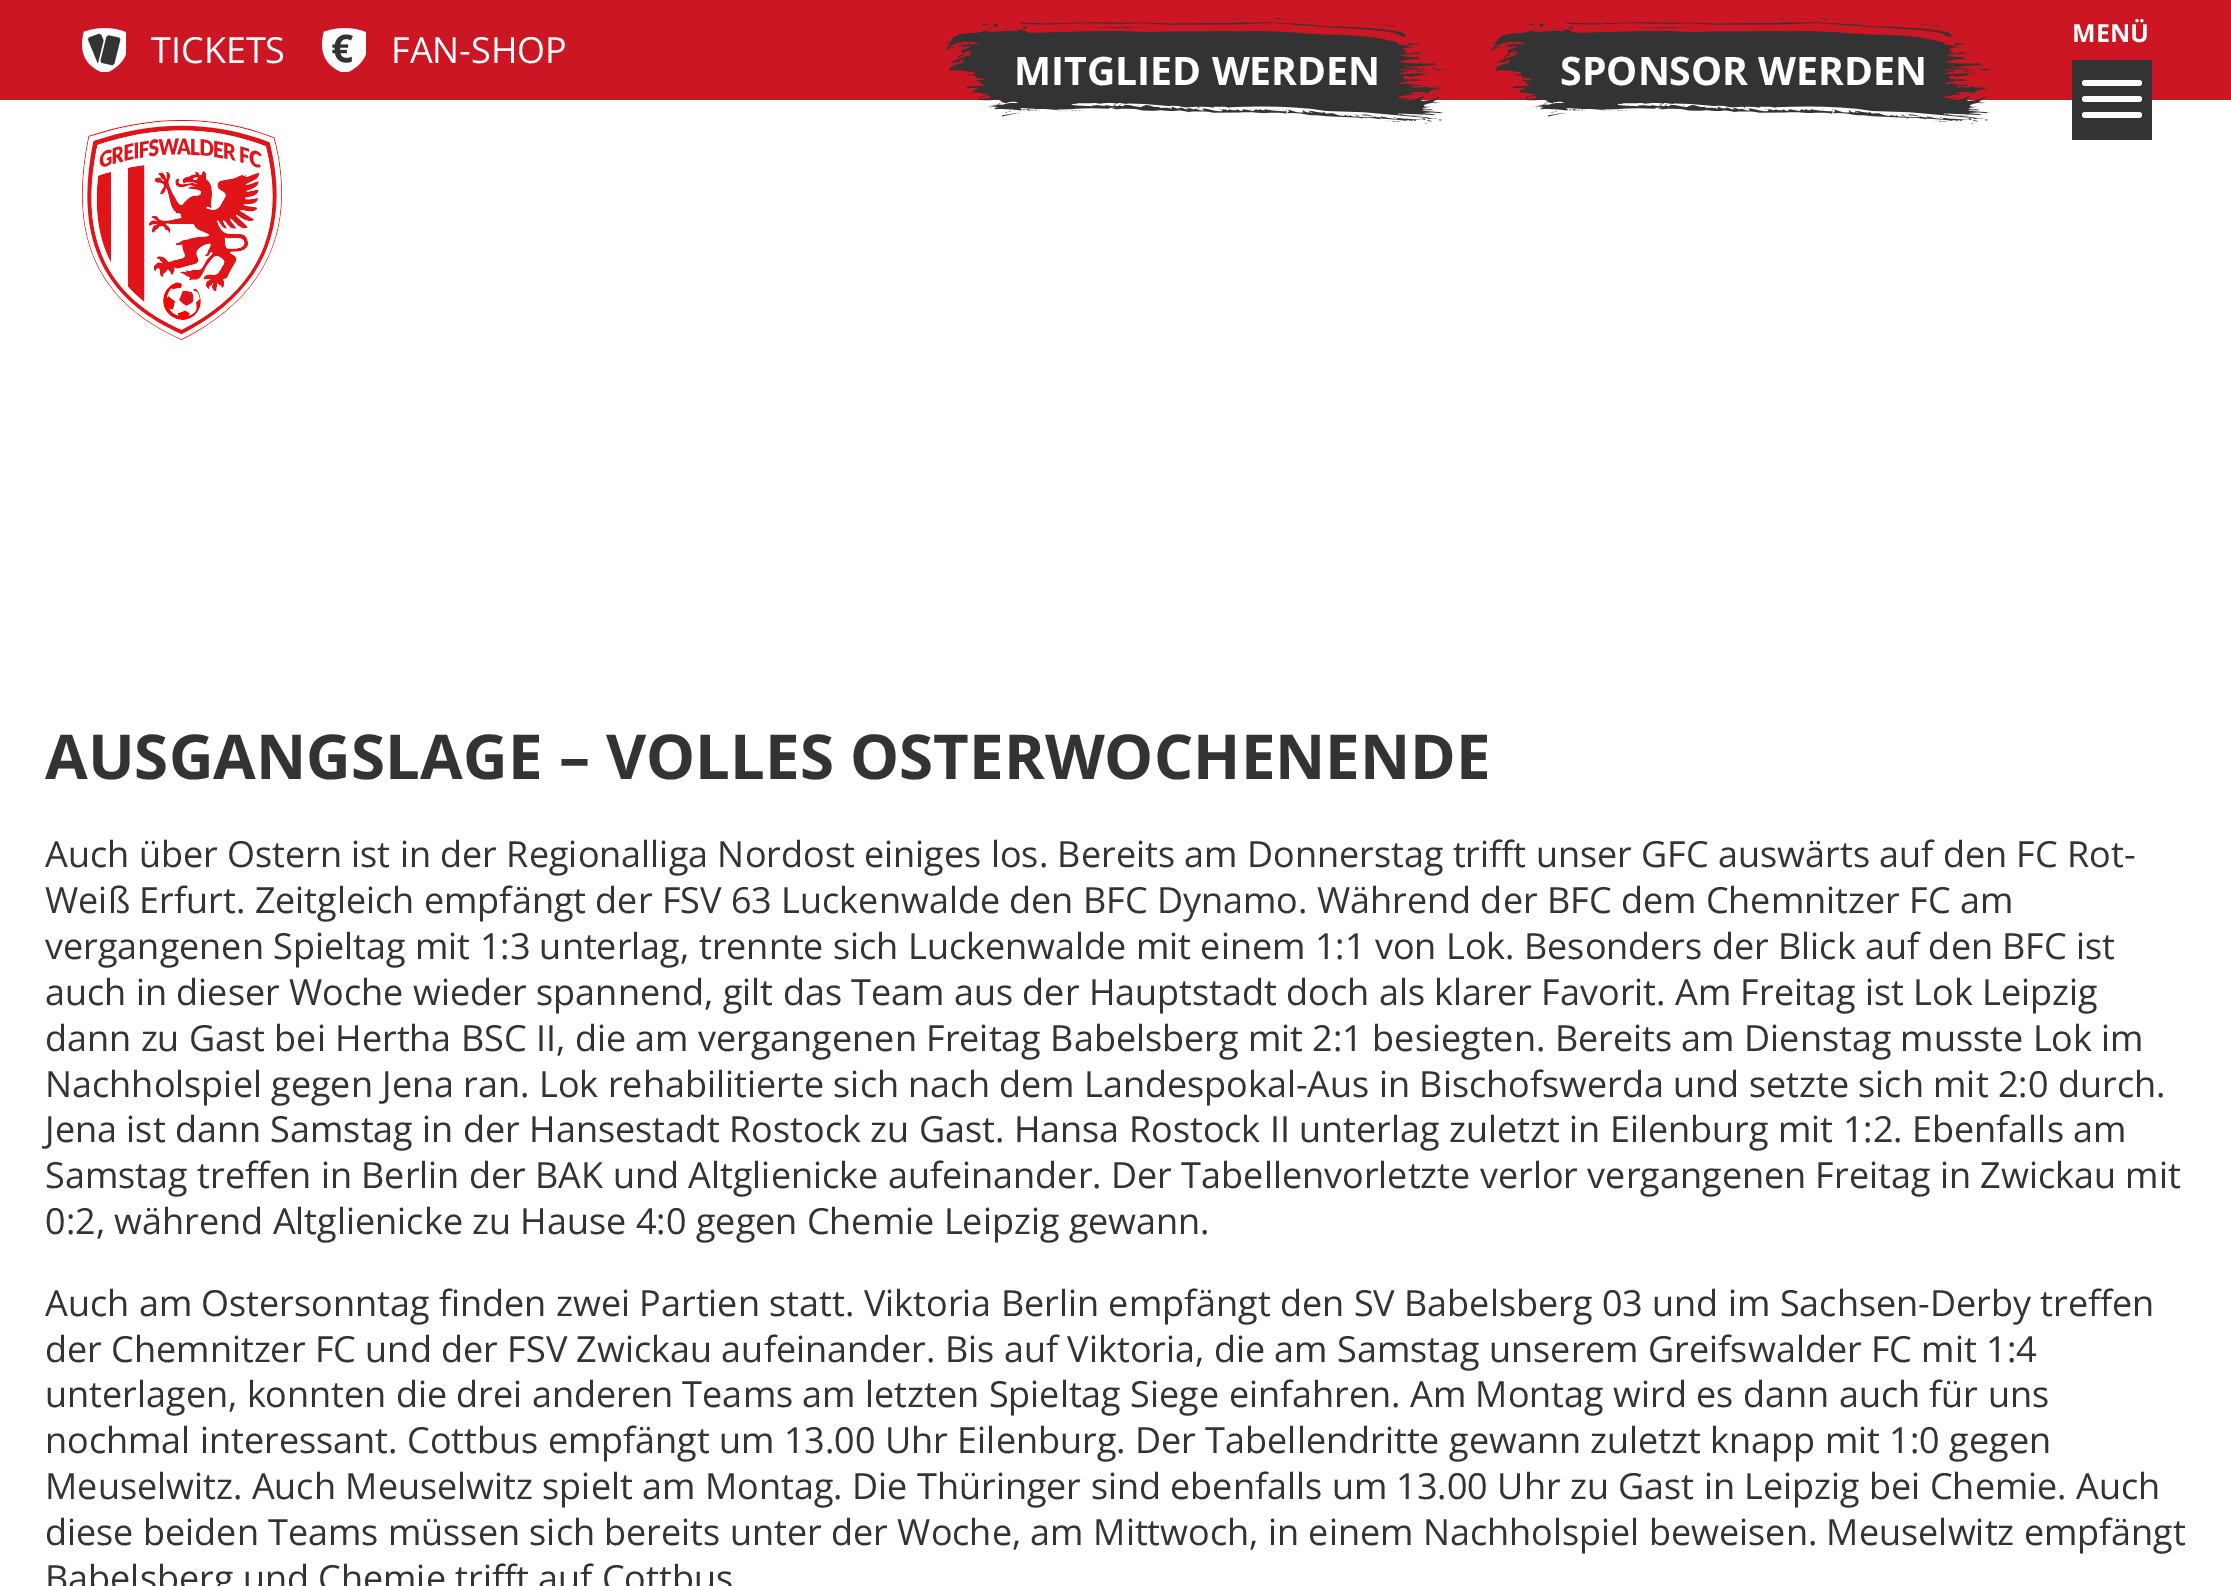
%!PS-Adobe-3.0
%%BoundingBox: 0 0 2231 1586
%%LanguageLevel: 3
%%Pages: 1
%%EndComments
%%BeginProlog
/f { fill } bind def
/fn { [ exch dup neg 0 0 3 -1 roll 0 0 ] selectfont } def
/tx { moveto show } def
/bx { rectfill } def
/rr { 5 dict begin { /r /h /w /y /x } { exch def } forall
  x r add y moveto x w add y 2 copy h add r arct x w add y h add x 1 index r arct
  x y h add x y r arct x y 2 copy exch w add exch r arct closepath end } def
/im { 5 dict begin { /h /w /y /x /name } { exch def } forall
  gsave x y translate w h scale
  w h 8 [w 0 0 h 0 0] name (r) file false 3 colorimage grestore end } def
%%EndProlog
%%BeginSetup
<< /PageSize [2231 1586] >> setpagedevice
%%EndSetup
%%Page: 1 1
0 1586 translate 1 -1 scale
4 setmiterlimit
1 setgray
0 0 2231 1586 bx
0.804 0.086 0.137 setrgbcolor
0 0 2231 100 bx
/OpenSans-Bold 25 fn
1 setgray
(MENÜ) 2072 42 tx
0.2 setgray
2072 60 80 80 bx
1 setgray
2082 96 60 6 3 rr f
2082 80 60 6 3 rr f
2082 112 60 6 3 rr f
(image0.raw) 82 28 44 44 im
/OpenSans-Regular 36 fn
(TICKETS) 151 63 tx
(image1.raw) 322 28 44 44 im
(FAN-SHOP) 391 63 tx
(image2.raw) 942 16 510 108 im
/OpenSans-Bold 39.25 fn
(MITGLIED WERDEN) 1014 85 tx
(image3.raw) 1488 16 510 108 im
(SPONSOR WERDEN) 1560 85 tx
(image4.raw) 82 120 200 220 im
/OpenSans-Bold 61.9 fn
0.2 setgray
(AUSGANGSLAGE – VOLLES OSTERWOCHENENDE) 45 779 tx
/OpenSans-Regular 36 fn
(Auch über Ostern ist in der Regionalliga Nordost einiges los. Bereits am Donnerstag trifft unser GFC auswärts auf den FC Rot-) 45 867 tx
(Weiß Erfurt. Zeitgleich empfängt der FSV 63 Luckenwalde den BFC Dynamo. Während der BFC dem Chemnitzer FC am) 45 913 tx
(vergangenen Spieltag mit 1:3 unterlag, trennte sich Luckenwalde mit einem 1:1 von Lok. Besonders der Blick auf den BFC ist) 45 959 tx
(auch in dieser Woche wieder spannend, gilt das Team aus der Hauptstadt doch als klarer Favorit. Am Freitag ist Lok Leipzig) 45 1005 tx
(dann zu Gast bei Hertha BSC II, die am vergangenen Freitag Babelsberg mit 2:1 besiegten. Bereits am Dienstag musste Lok im) 45 1051 tx
(Nachholspiel gegen Jena ran. Lok rehabilitierte sich nach dem Landespokal-Aus in Bischofswerda und setzte sich mit 2:0 durch.) 45 1097 tx
(Jena ist dann Samstag in der Hansestadt Rostock zu Gast. Hansa Rostock II unterlag zuletzt in Eilenburg mit 1:2. Ebenfalls am) 45 1142 tx
(Samstag treffen in Berlin der BAK und Altglienicke aufeinander. Der Tabellenvorletzte verlor vergangenen Freitag in Zwickau mit) 45 1188 tx
(0:2, während Altglienicke zu Hause 4:0 gegen Chemie Leipzig gewann.) 45 1234 tx
(Auch am Ostersonntag finden zwei Partien statt. Viktoria Berlin empfängt den SV Babelsberg 03 und im Sachsen-Derby treffen) 45 1316 tx
(der Chemnitzer FC und der FSV Zwickau aufeinander. Bis auf Viktoria, die am Samstag unserem Greifswalder FC mit 1:4) 45 1362 tx
(unterlagen, konnten die drei anderen Teams am letzten Spieltag Siege einfahren. Am Montag wird es dann auch für uns) 45 1407 tx
(nochmal interessant. Cottbus empfängt um 13.00 Uhr Eilenburg. Der Tabellendritte gewann zuletzt knapp mit 1:0 gegen) 45 1453 tx
(Meuselwitz. Auch Meuselwitz spielt am Montag. Die Thüringer sind ebenfalls um 13.00 Uhr zu Gast in Leipzig bei Chemie. Auch) 45 1499 tx
(diese beiden Teams müssen sich bereits unter der Woche, am Mittwoch, in einem Nachholspiel beweisen. Meuselwitz empfängt) 45 1545 tx
(Babelsberg und Chemie trifft auf Cottbus) 45 1591 tx
showpage
%%EOF
